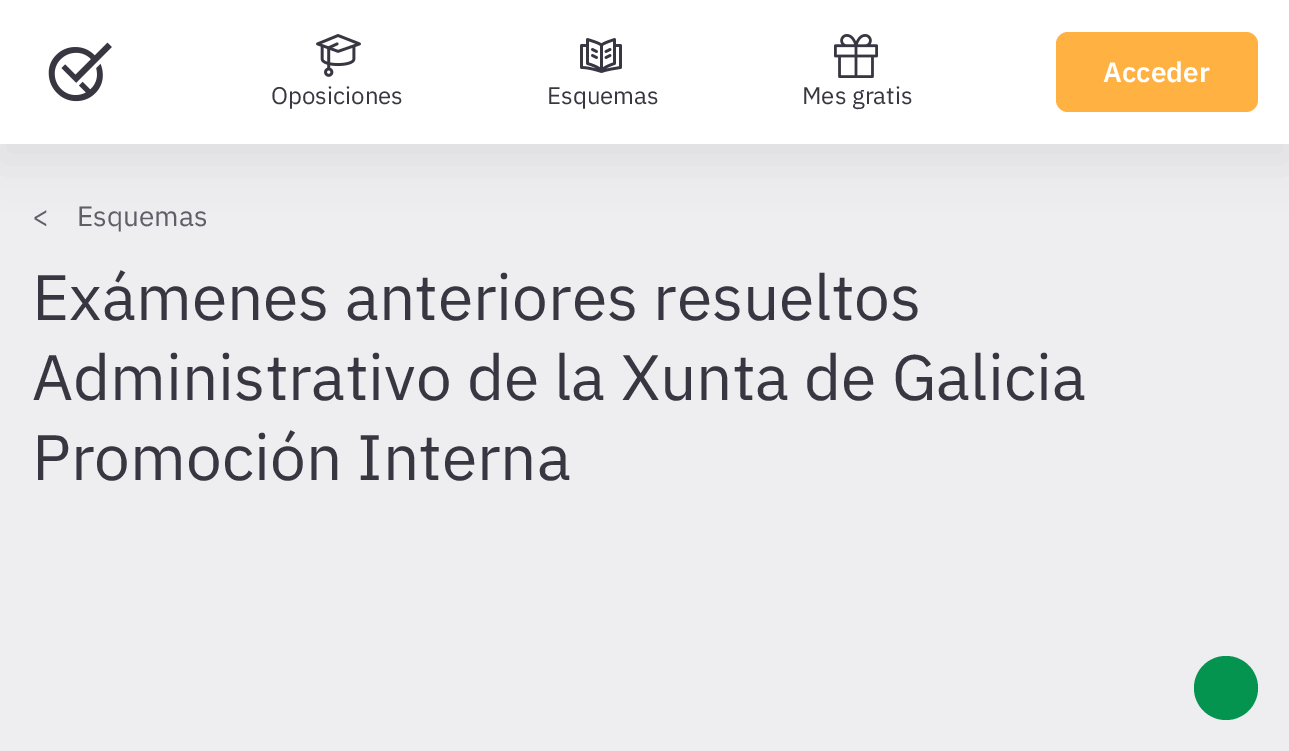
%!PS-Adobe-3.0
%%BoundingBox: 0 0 1289 751
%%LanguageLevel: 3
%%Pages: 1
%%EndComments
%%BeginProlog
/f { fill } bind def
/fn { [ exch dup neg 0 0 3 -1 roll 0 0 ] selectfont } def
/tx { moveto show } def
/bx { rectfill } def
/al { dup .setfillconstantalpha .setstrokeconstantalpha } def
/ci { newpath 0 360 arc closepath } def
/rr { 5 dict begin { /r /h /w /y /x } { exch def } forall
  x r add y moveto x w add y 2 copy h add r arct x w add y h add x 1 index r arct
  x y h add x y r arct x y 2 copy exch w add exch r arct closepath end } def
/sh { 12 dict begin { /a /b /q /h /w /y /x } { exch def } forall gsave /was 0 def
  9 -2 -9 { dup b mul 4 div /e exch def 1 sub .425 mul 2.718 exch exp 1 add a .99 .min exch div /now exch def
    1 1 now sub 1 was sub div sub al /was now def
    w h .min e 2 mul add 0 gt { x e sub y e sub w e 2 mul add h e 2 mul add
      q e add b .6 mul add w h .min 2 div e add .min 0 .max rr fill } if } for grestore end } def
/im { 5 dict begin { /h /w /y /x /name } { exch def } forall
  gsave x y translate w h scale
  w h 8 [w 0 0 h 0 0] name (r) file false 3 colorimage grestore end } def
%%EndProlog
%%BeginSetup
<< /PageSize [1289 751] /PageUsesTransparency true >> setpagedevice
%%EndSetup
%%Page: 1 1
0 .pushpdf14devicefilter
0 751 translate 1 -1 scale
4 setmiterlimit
0.933 0.929 0.941 setrgbcolor
0 0 1289 751 bx
0.22 0.212 0.255 setrgbcolor
0 16 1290 144 0 24 0.1 sh
1 setgray
0 0 1289 144 bx
(image0.raw) 48 42 64 60 im
1 0.694 0.259 setrgbcolor
1056 32 202 80 12 rr f
/IBMPlexSans-SemiBold 28 fn
1 setgray
(Acceder) 1103 82 tx
(image1.raw) 316 34 45 43 im
/IBMPlexSans-Regular 24 fn
0.22 0.212 0.255 setrgbcolor
(Oposiciones) 271 104 tx
(image2.raw) 580 38 42 35 im
(Esquemas) 547 104 tx
(image3.raw) 834 34 44 44 im
(Mes gratis) 802 104 tx
/IBMPlexSans-Regular 28 fn
0.376 0.369 0.404 setrgbcolor
(<) 32 226 tx
(Esquemas) 77 226 tx
/IBMPlexSans-Regular 64 fn
0.22 0.212 0.255 setrgbcolor
(Exámenes anteriores resueltos) 32 320 tx
(Administrativo de la Xunta de Galicia) 32 400 tx
(Promoción Interna) 32 480 tx
0.02 0.58 0.31 setrgbcolor
1226 688 32 ci f
.poppdf14devicefilter showpage
%%EOF
